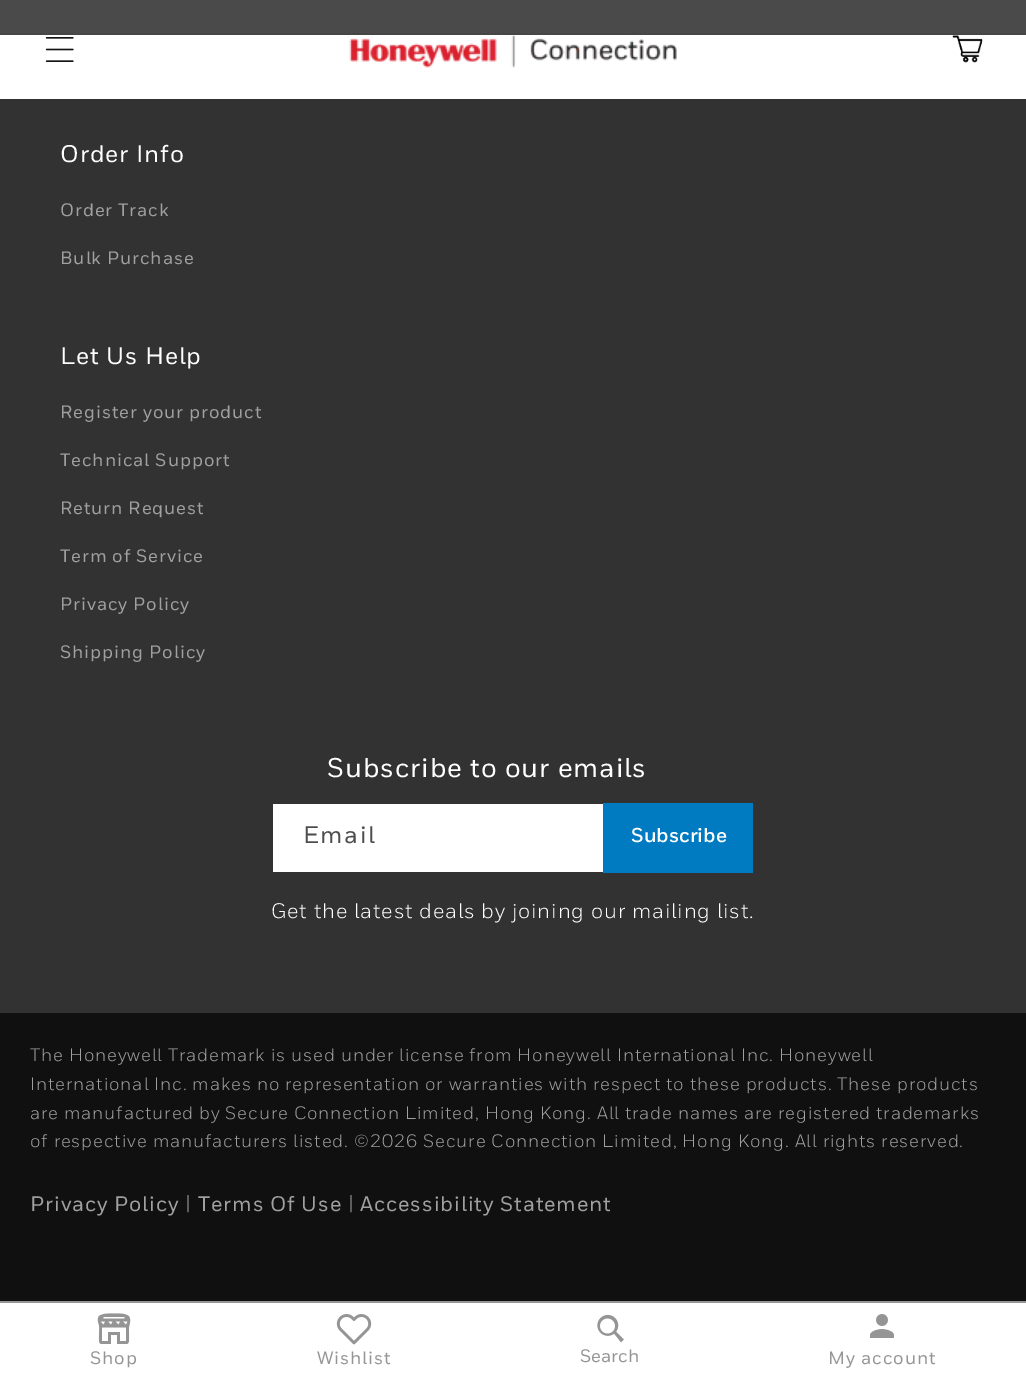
%!PS-Adobe-3.0
%%BoundingBox: 0 0 1026 1400
%%LanguageLevel: 3
%%Pages: 1
%%EndComments
%%BeginProlog
/m { moveto } bind def
/fn { [ exch dup neg 0 0 3 -1 roll 0 0 ] selectfont } def
/tx { moveto show } def
/bx { rectfill } def
/im { 5 dict begin { /h /w /y /x /name } { exch def } forall
  gsave x y translate w h scale
  w h 8 [w 0 0 h 0 0] name (r) file false 3 colorimage grestore end } def
%%EndProlog
%%BeginSetup
<< /PageSize [1026 1400] >> setpagedevice
%%EndSetup
%%Page: 1 1
0 1400 translate 1 -1 scale
4 setmiterlimit
0.196 setgray
0 0 1026 1400 bx
0.29 setgray
0 0 1026 33 bx
0.275 setgray
0 33 1026 2 bx
1 setgray
0 35 1026 64 bx
(image0.raw) 45 37 29 25 im
(image1.raw) 349 35 328 33 im
(image2.raw) 952 35 31 28 im
/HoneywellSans-Medium 24 fn
60 162 m 0.9 0 (Order Info) ashow
/HoneywellSans-Medium 18 fn
0.627 setgray
60 216 m 0.9 0 (Order Track) ashow
60 264 m 0.9 0 (Bulk Purchase) ashow
/HoneywellSans-Medium 24 fn
1 setgray
60 364 m 0.9 0 (Let Us Help) ashow
/HoneywellSans-Medium 18 fn
0.627 setgray
60 418 m 0.9 0 (Register your product) ashow
60 466 m 0.9 0 (Technical Support) ashow
60 514 m 0.9 0 (Return Request) ashow
60 562 m 0.9 0 (Term of Service) ashow
60 610 m 0.9 0 (Privacy Policy) ashow
60 658 m 0.9 0 (Shipping Policy) ashow
/HoneywellSans-Medium 27 fn
1 setgray
327 777 m 0.9 0 (Subscribe to our emails) ashow
273 804 330 68 bx
/HoneywellSans-Medium 24 fn
0.302 setgray
303 843 m 1.5 0 (Email) ashow
0 0.482 0.761 setrgbcolor
603 803 150 70 bx
/HoneywellSans-Bold 20 fn
1 setgray
(Subscribe) 631 842 tx
/HoneywellSans-Regular 21 fn
271 918 m 0.9 0 (Get the latest deals by joining our mailing list.) ashow
0.063 setgray
0 1013 1026 288 bx
/HoneywellSans-Regular 18 fn
0.627 setgray
30 1061 m 0.9 0 (The Honeywell Trademark is used under license from Honeywell International Inc. Honeywell) ashow
30 1090 m 0.9 0 (International Inc. makes no representation or warranties with respect to these products. These products) ashow
30 1119 m 0.9 0 (are manufactured by Secure Connection Limited, Hong Kong. All trade names are registered trademarks) ashow
30 1147 m 0.9 0 (of respective manufacturers listed. ©2026 Secure Connection Limited, Hong Kong. All rights reserved.) ashow
/HoneywellSans-Medium 21 fn
30 1211 m 0.9 0 (Privacy Policy) ashow
/HoneywellSans-Regular 21 fn
185 1211 m 0.9 0 (|) ashow
/HoneywellSans-Medium 21 fn
198 1211 m 0.9 0 (Terms Of Use) ashow
/HoneywellSans-Regular 21 fn
348 1211 m 0.9 0 (|) ashow
/HoneywellSans-Medium 21 fn
360 1211 m 0.9 0 (Accessibility Statement) ashow
1 setgray
0 1303 1026 97 bx
0.584 setgray
0 1301 1026 2 bx
(image3.raw) 97 1313 34 31 im
/HoneywellSans-Medium 18 fn
90 1364 m 0.9 0 (Shop) ashow
(image4.raw) 336 1314 36 31 im
317 1364 m 0.9 0 (Wishlist) ashow
(image5.raw) 597 1314 27 29 im
(Search) 580 1362 tx
(image6.raw) 870 1314 24 24 im
828 1364 m 0.9 0 (My account) ashow
showpage
%%EOF
